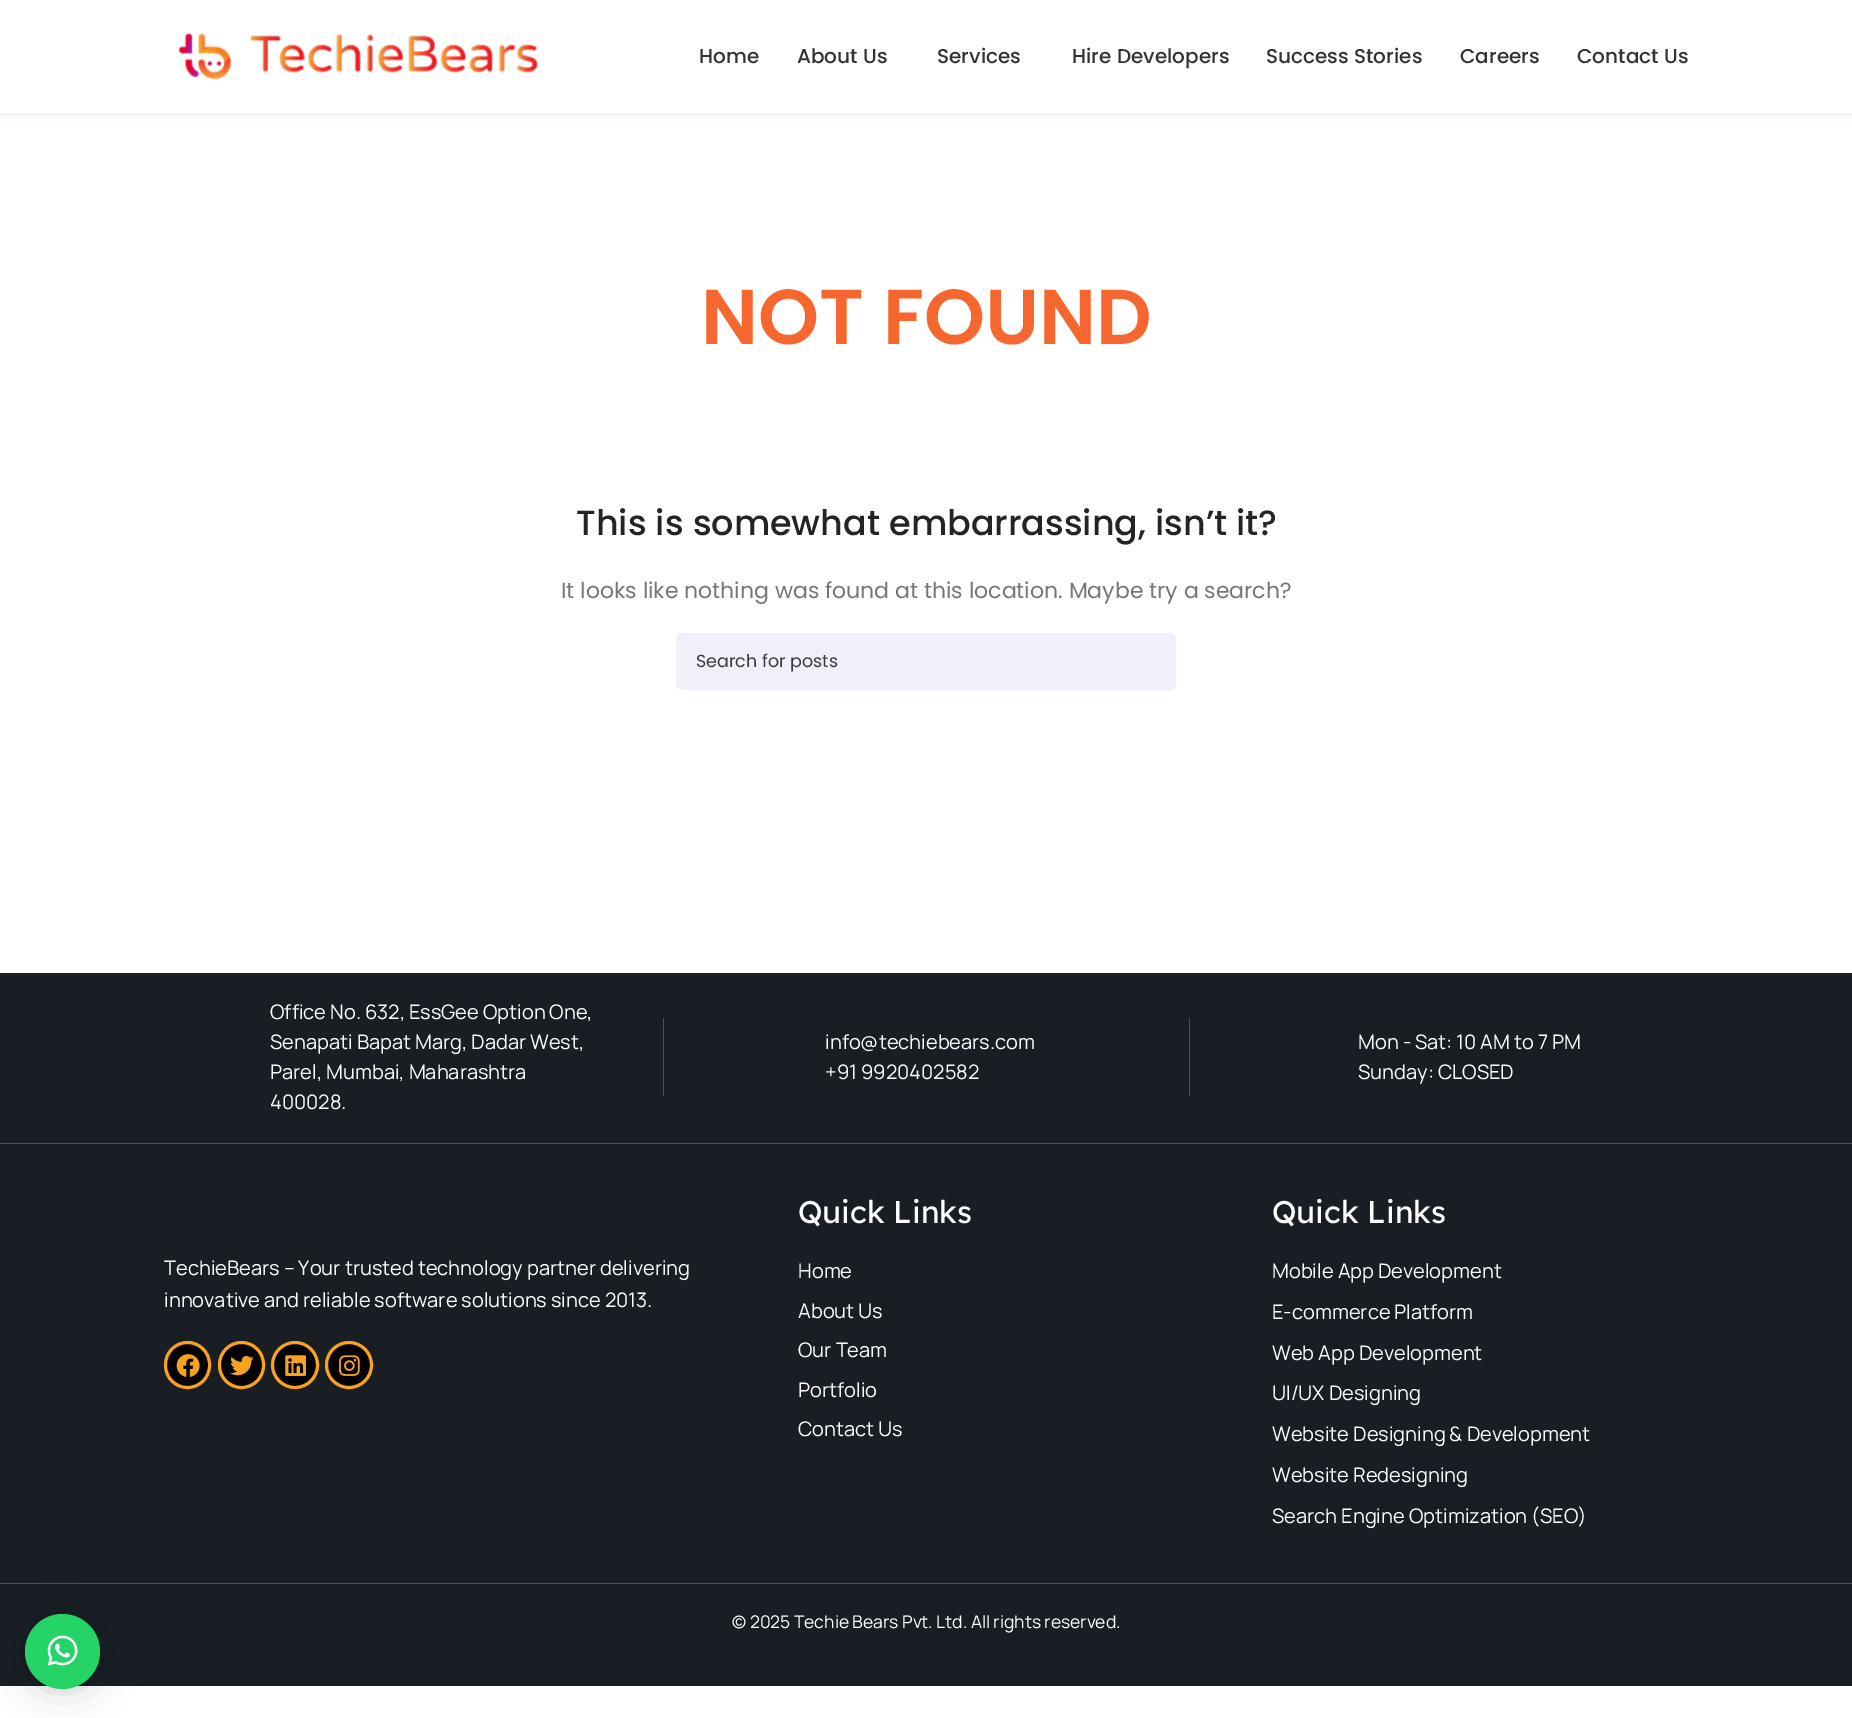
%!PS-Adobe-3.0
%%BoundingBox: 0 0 1852 1718
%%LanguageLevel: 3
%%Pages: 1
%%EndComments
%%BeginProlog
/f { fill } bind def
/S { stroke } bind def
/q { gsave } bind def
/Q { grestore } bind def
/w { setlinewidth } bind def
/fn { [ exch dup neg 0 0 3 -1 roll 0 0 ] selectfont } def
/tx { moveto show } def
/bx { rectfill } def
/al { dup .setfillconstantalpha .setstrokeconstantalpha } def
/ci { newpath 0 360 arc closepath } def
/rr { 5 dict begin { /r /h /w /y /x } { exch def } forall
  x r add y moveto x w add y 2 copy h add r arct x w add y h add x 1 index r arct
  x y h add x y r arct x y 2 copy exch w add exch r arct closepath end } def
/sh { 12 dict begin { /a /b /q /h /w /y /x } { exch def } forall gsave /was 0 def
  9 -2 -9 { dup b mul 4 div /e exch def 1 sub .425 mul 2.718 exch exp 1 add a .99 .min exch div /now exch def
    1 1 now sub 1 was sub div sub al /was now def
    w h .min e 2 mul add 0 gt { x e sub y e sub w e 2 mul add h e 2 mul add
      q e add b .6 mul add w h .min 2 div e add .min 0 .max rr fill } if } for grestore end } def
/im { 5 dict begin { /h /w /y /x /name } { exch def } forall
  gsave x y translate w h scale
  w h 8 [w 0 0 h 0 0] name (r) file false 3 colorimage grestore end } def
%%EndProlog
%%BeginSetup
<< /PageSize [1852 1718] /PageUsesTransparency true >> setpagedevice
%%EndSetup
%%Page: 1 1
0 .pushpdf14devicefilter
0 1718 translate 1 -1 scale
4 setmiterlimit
1 setgray
0 0 1852 1718 bx
0.094 0.118 0.137 setrgbcolor
0 1144 1852 439 bx
0.314 setgray
0 1583 1852 1 bx
0.094 0.118 0.137 setrgbcolor
0 1584 1852 102 bx
0 setgray
25 1616 75 75 37.5 20 0.16 sh
25 1615 75 75 37.5 4 0.06 sh
0.145 0.827 0.4 setrgbcolor
62.5 1651.5 37.5 ci f
(image0.raw) 47 1635 31 31 im
0 setgray
0 1 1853 113 0 5 0.1 sh
1 setgray
0 0 1852 113 bx
(image1.raw) 178 33 360 47 im
/Poppins-Medium 20 fn
0.2 setgray
(Home) 699 63 tx
(About Us) 797 63 tx
(Services) 937 63 tx
(Hire Developers) 1072 63 tx
(Success Stories) 1266 63 tx
(Careers) 1460 63 tx
(Contact Us) 1577 63 tx
/Poppins-SemiBold 77.75 fn
0.961 0.404 0.184 setrgbcolor
(NOT FOUND) 701 344 tx
/Poppins-Medium 35 fn
0.141 setgray
(This is somewhat embarrassing, isn’t it?) 576 535 tx
/Poppins-Regular 22 fn
0.463 setgray
(It looks like nothing was found at this location. Maybe try a search?) 561 598 tx
0.937 0.941 0.976 setrgbcolor
676.5 633.5 499 56 5.5 rr q f Q
S
/Poppins-Regular 17.5 fn
0.227 setgray
(Search for posts) 696 667 tx
0.094 0.118 0.137 setrgbcolor
0 973 1852 170 bx
/Manrope-Regular 20 fn
1 setgray
(Office No. 632, EssGee Option One,) 270 1019 tx
(Senapati Bapat Marg, Dadar West,) 270 1049 tx
(Parel, Mumbai, Maharashtra) 270 1079 tx
(400028.) 270 1109 tx
0.314 setgray
1189 1018 1 78 bx
663 1018 1 78 bx
1 setgray
(info@techiebears.com) 825 1049 tx
(+91 9920402582) 825 1079 tx
(Mon - Sat: 10 AM to 7 PM) 1358 1049 tx
(Sunday: CLOSED) 1358 1079 tx
0.314 setgray
0 1143 1852 1 bx
1 setgray
(TechieBears – Your trusted technology partner delivering) 164 1275 tx
(innovative and reliable software solutions since 2013.) 164 1307 tx
0 setgray
165.5 1342.5 44 45 22 rr q f Q
0.969 0.635 0.133 setrgbcolor
3 w
S
(image2.raw) 176 1354 24 23 im
0 setgray
219.5 1342.5 44 45 22 rr q f Q
0.969 0.635 0.133 setrgbcolor
S
(image3.raw) 230 1356 24 20 im
0 setgray
295 1365 22.5 ci q f Q
0.969 0.635 0.133 setrgbcolor
S
(image4.raw) 285 1355 21 21 im
0 setgray
349 1365 22.5 ci q f Q
0.969 0.635 0.133 setrgbcolor
S
(image5.raw) 339 1355 21 21 im
/LexendDeca-Regular 31.25 fn
1 setgray
(Quick Links) 798 1223 tx
/Manrope-Regular 20 fn
(Home) 798 1278 tx
(About Us) 798 1318 tx
(Our Team) 798 1357 tx
(Portfolio) 798 1397 tx
(Contact Us) 798 1436 tx
/LexendDeca-Regular 31.25 fn
(Quick Links) 1272 1223 tx
/Manrope-Regular 20 fn
(Mobile App Development) 1272 1278 tx
(E-commerce Platform) 1272 1319 tx
(Web App Development) 1272 1360 tx
(UI/UX Designing) 1272 1400 tx
(Website Designing & Development) 1272 1441 tx
(Website Redesigning) 1272 1482 tx
(Search Engine Optimization \(SEO\)) 1272 1523 tx
/Manrope-Regular 17.5 fn
(© 2025 Techie Bears Pvt. Ltd. All rights reserved.) 732 1628 tx
.poppdf14devicefilter showpage
%%EOF
